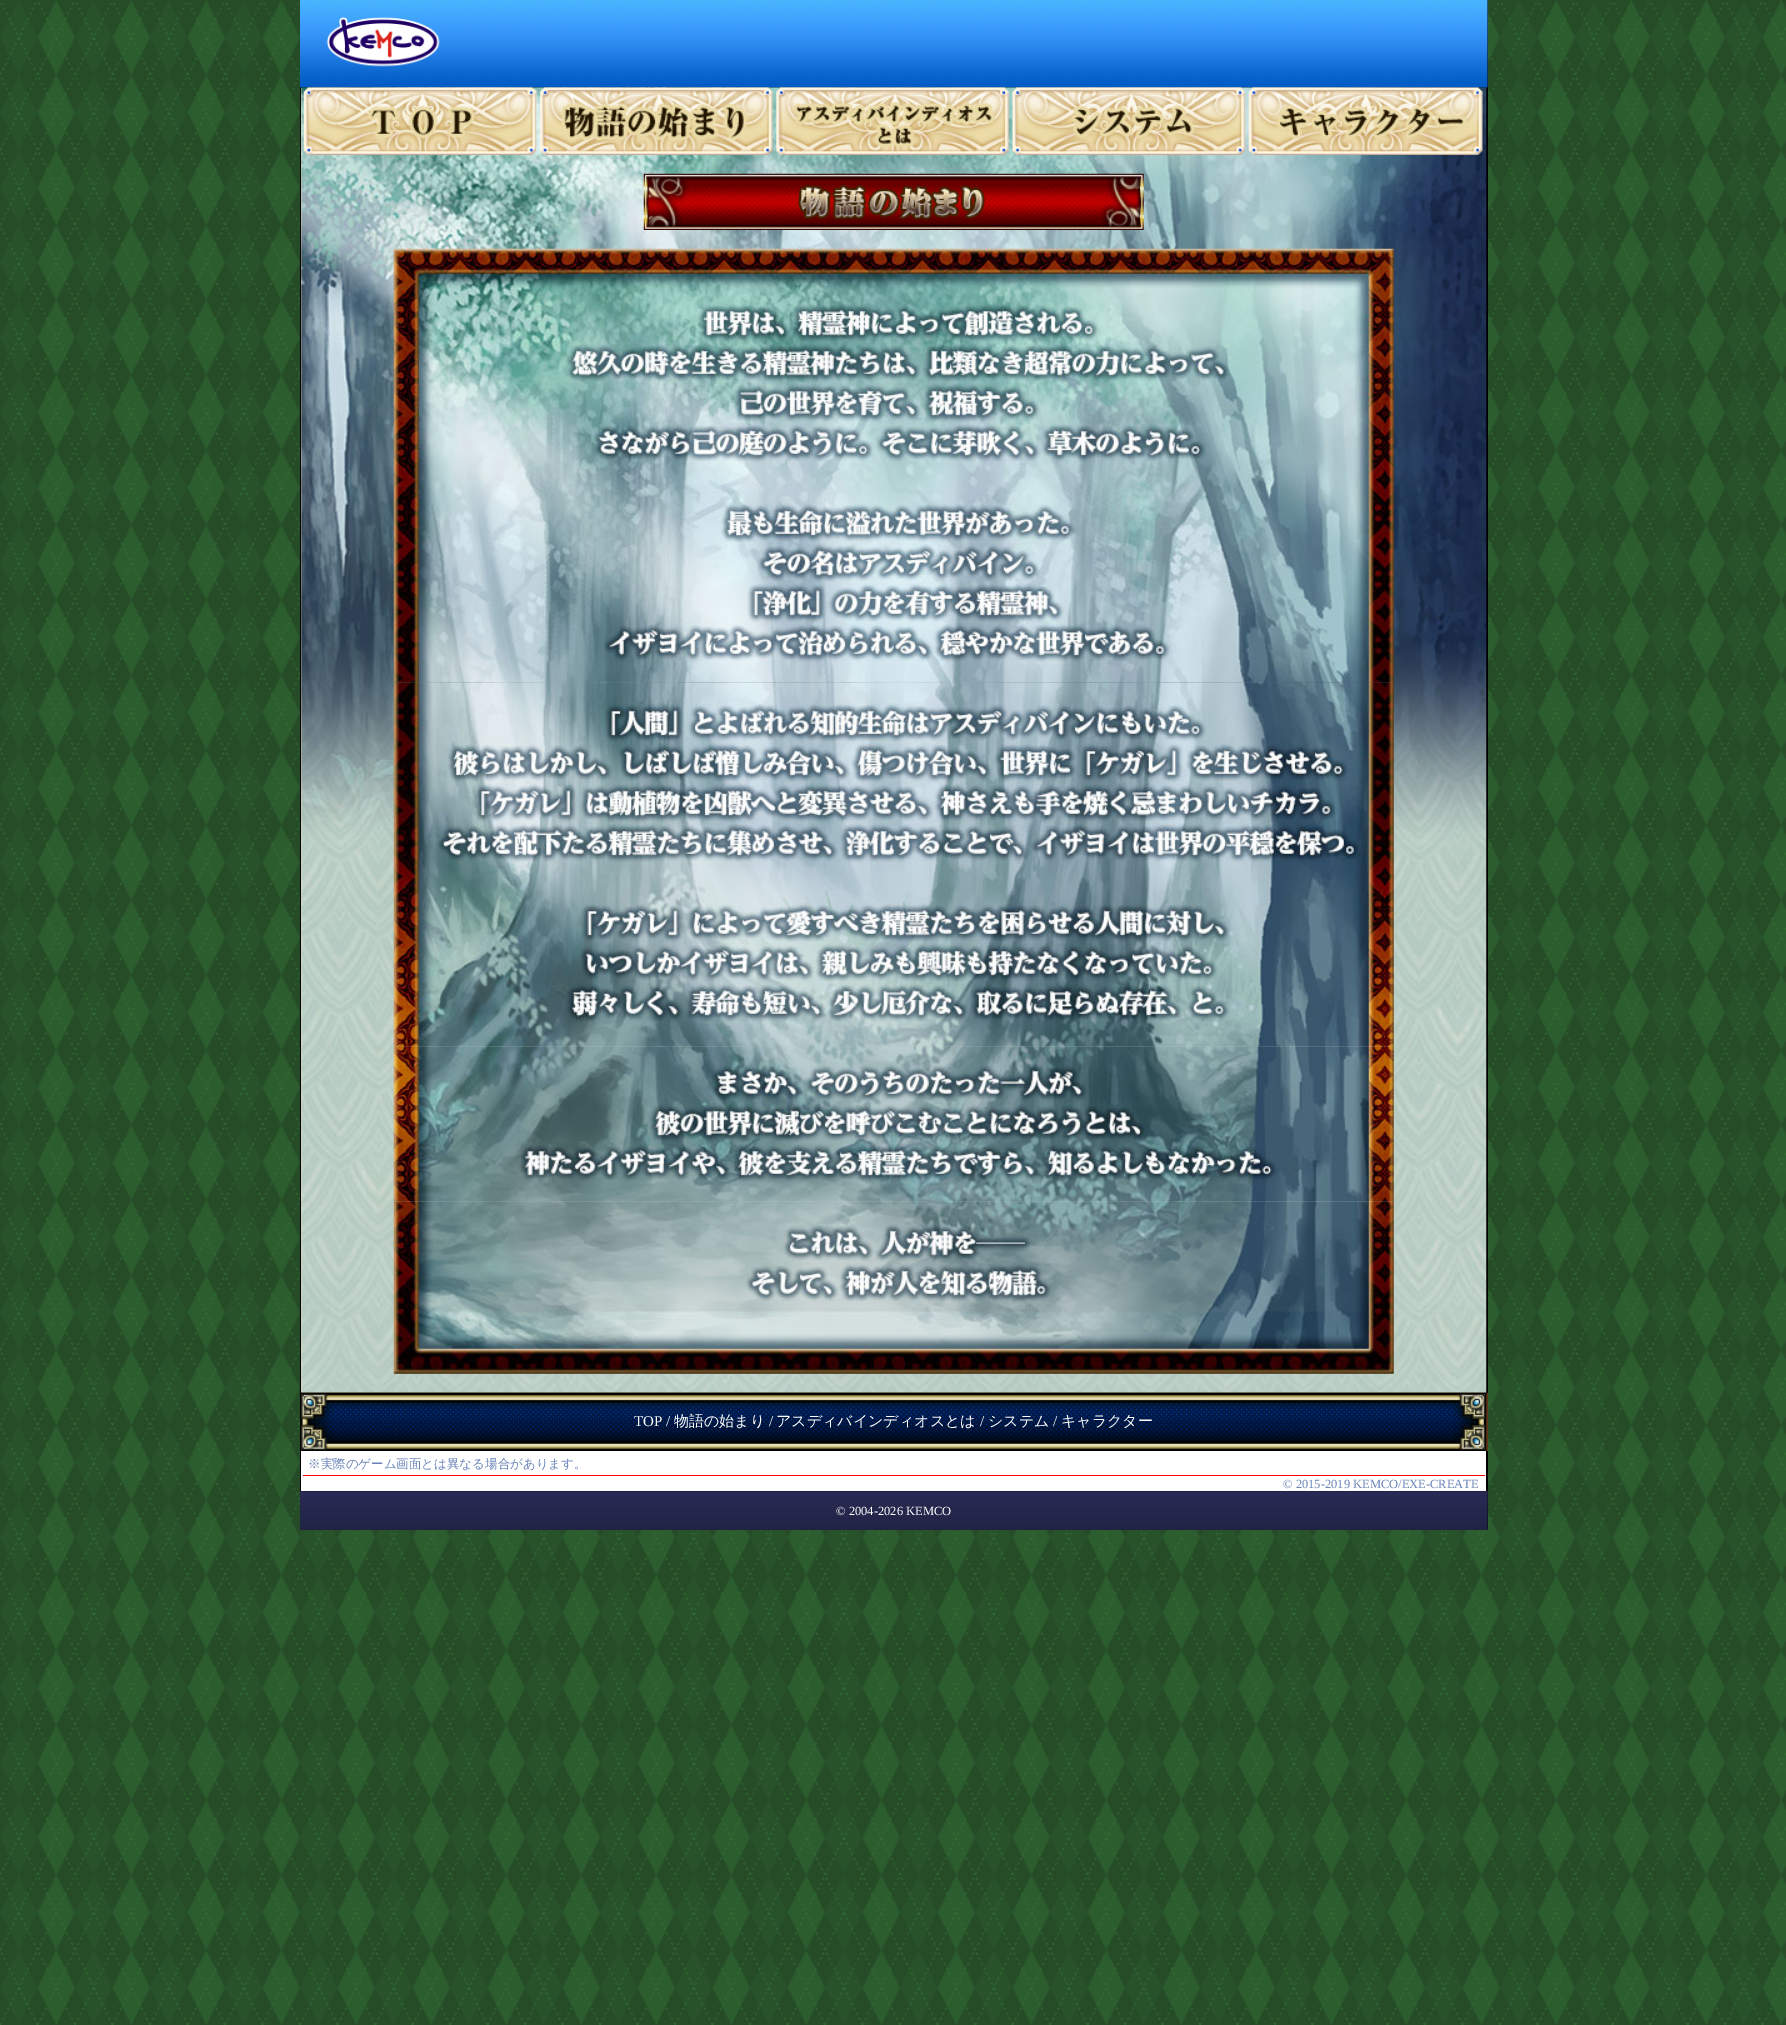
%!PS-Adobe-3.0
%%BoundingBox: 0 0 1786 2025
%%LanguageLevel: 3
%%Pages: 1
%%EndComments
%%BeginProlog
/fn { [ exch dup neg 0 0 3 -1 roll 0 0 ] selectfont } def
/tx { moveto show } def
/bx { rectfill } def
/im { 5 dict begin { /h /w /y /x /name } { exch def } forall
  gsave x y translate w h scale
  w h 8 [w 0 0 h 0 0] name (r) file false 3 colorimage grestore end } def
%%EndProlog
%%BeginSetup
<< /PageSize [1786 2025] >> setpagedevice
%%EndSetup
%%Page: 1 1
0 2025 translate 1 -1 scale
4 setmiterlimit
1 setgray
0 0 1786 2025 bx
(image0.raw) 0 0 1786 2025 im
0 setgray
300 0 1188 1491 bx
(image1.raw) 300 0 1188 88 im
(image2.raw) 326 17 114 50 im
1 0.941 0.659 setrgbcolor
301 88 1185 1305 bx
(image3.raw) 301 87 1186 1306 im
(image4.raw) 303 87 234 68 im
(image5.raw) 539 87 234 68 im
(image6.raw) 776 87 233 68 im
(image7.raw) 1012 87 234 68 im
(image8.raw) 1248 87 235 68 im
(image9.raw) 643 173 501 57 im
(image10.raw) 393 248 1001 242 im
(image11.raw) 393 490 1001 193 im
(image12.raw) 393 682 1001 193 im
(image13.raw) 393 875 1001 172 im
(image14.raw) 393 1046 1001 156 im
(image15.raw) 393 1201 1001 173 im
0.373 0.204 0.086 setrgbcolor
1486 1393 2 58 bx
(image16.raw) 300 1392 1187 59 im
/LiberationSerif-Regular 15 fn
1 setgray
(TOP /) 634 1426 tx
/WenQuanYiZenHei-Medium 15 fn
(物語の始まり) 674 1426 tx
/LiberationSerif-Regular 15 fn
(/) 769 1426 tx
/WenQuanYiZenHei-Medium 15 fn
(アスディバインディオスとは) 776 1426 tx
/LiberationSerif-Regular 15 fn
(/) 980 1426 tx
/WenQuanYiZenHei-Medium 15 fn
(システム) 988 1426 tx
/LiberationSerif-Regular 15 fn
(/) 1053 1426 tx
/WenQuanYiZenHei-Medium 15 fn
(キャラクター) 1061 1426 tx
301 1451 1185 40 bx
/WenQuanYiZenHei-Medium 12.5 fn
0.416 0.518 0.725 setrgbcolor
(※実際のゲーム画面とは異なる場合があります。) 308 1468 tx
1 0 0 setrgbcolor
303 1475 1182 1 bx
/LiberationSerif-Regular 12.5 fn
0.416 0.518 0.725 setrgbcolor
(© 2015-2019 KEMCO/EXE-CREATE) 1283 1488 tx
0.035 setgray
300 1491 1188 39 bx
(image17.raw) 300 1491 1188 39 im
1 setgray
(© 2004-2026 KEMCO) 836 1515 tx
showpage
%%EOF
